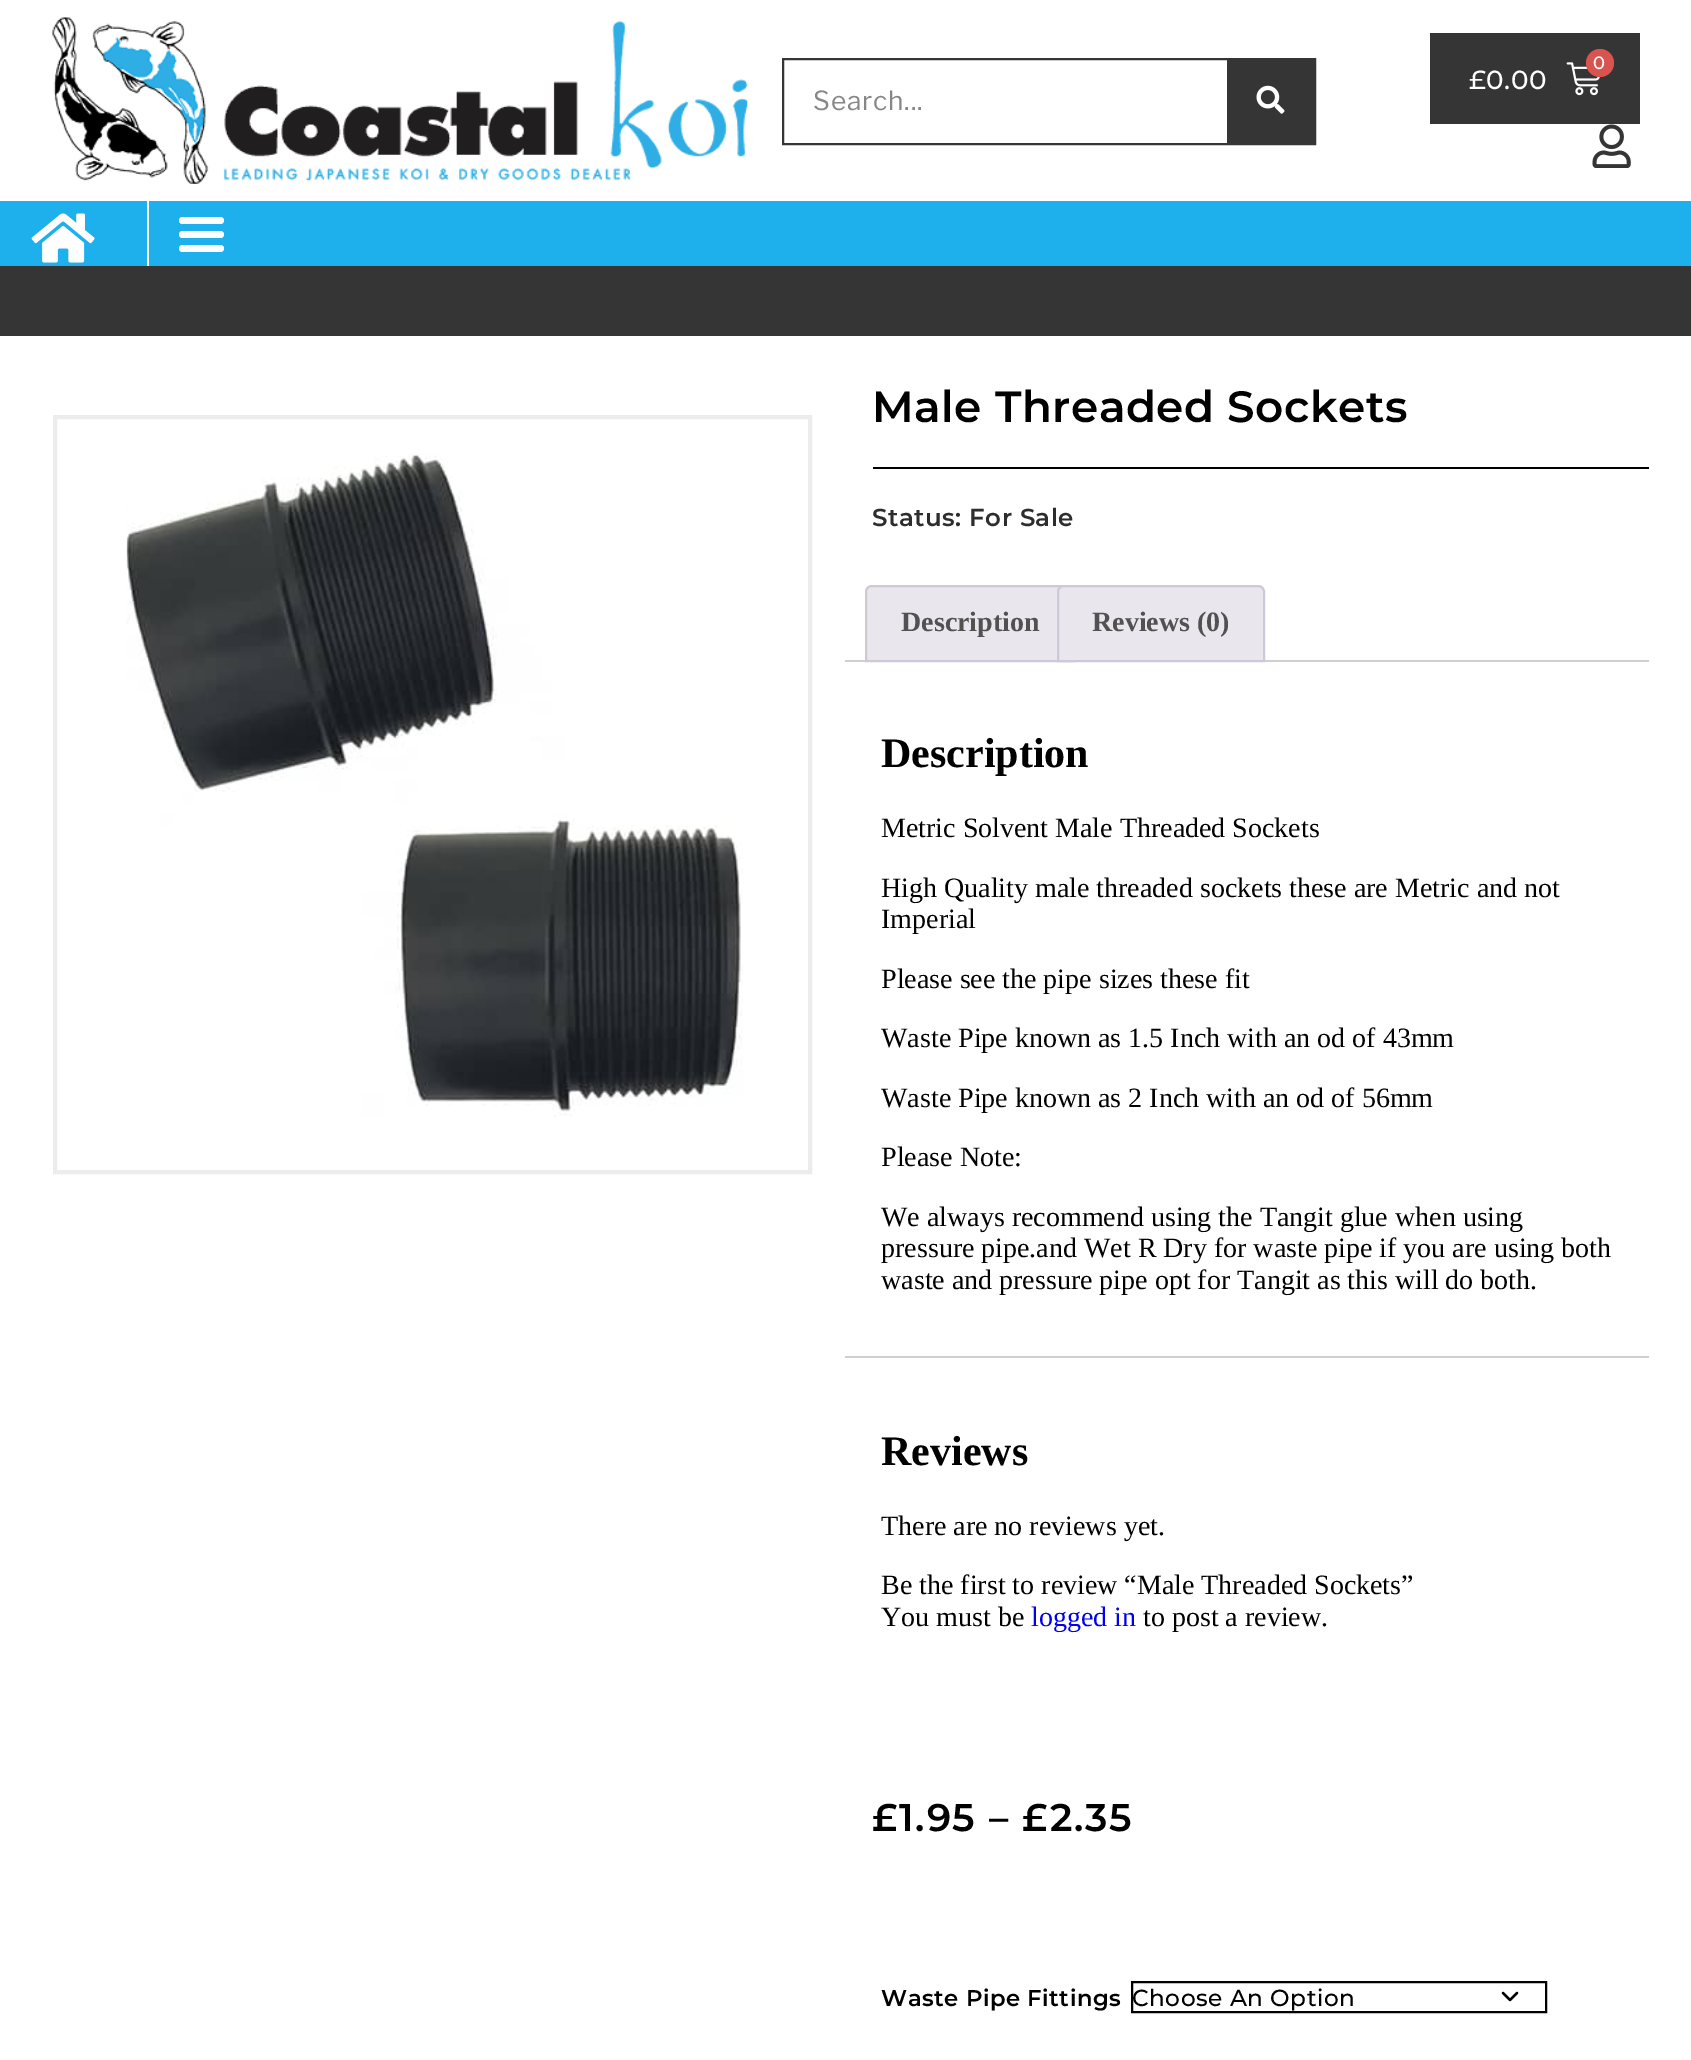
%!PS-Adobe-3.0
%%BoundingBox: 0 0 1691 2060
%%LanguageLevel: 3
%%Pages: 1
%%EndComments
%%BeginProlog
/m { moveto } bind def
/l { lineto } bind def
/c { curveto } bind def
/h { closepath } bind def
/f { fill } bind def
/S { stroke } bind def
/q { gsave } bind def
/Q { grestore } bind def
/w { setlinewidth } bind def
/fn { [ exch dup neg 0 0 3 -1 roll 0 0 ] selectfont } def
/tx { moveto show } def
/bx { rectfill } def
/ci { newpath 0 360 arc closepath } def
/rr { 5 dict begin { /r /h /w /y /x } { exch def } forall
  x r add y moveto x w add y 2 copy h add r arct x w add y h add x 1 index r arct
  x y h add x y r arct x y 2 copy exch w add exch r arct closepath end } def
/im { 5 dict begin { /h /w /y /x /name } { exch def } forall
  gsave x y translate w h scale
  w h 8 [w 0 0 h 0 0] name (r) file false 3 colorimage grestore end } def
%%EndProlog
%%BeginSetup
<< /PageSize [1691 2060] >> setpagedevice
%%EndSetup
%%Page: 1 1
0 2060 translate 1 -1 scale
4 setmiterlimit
1 setgray
0 0 1691 2060 bx
(image0.raw) 52 17 696 167 im
0.212 0.208 0.208 setrgbcolor
1430 33 210 91 bx
(image1.raw) 1566 62 34 34 im
0.851 0.325 0.31 setrgbcolor
1600 63 14 ci f
/Montserrat-Medium 18 fn
1 setgray
1593 69 m 0.5 0 (0) ashow
/Montserrat-Medium 26.25 fn
1469 89 m 0.5 0 (£0.00) ashow
(image2.raw) 1592 124 39 44 im
0.212 0.208 0.208 setrgbcolor
2 w
783 59 532 85 rectstroke
/LibreFranklin-Regular 26.25 fn
0.525 setgray
813 110 m 0.9 0 (Search...) ashow
0.212 0.208 0.208 setrgbcolor
1227 60 87 83 bx
(image3.raw) 1256 85 29 29 im
0.114 0.69 0.929 setrgbcolor
0 201 1691 65 bx
1 setgray
147 201 2 65 bx
(image4.raw) 31 213 64 50 im
179 231 45 7 3.5 rr f
179 217 45 7 3.5 rr f
179 245 45 7 3.5 rr f
0.212 0.208 0.208 setrgbcolor
0 266 1691 70 bx
0.925 setgray
4 w
55 417 755 755 rectstroke
(image5.raw) 126 453 617 664 im
/Montserrat-SemiBold 43.75 fn
0 setgray
872 422 m 0.5 0 (Male Threaded Sockets) ashow
873 467 776 2 bx
/Montserrat-SemiBold 24.5 fn
0.176 setgray
872 526 m 0.5 0 (Status: For Sale) ashow
0.827 0.808 0.824 setrgbcolor
845 660 804 2 bx
0.914 0.902 0.929 setrgbcolor
872 586 m 1068 586 l 1071.5 586 1074 588.5 1074 592 c 1074 661 l 866 661 l 866 592 l 866 588.5 868.5 586 872 586 c h q f Q
0.812 0.784 0.847 setrgbcolor
2 w
S
/LiberationSerif-Bold 28 fn
0.318 setgray
(Description) 901 631 tx
0.914 0.902 0.929 setrgbcolor
1064 586 m 1258 586 l 1261.5 586 1264 588.5 1264 592 c 1264 661 l 1058 661 l 1058 592 l 1058 588.5 1060.5 586 1064 586 c h q f Q
0.812 0.784 0.847 setrgbcolor
S
0.318 setgray
(Reviews \(0\)) 1092 631 tx
/LiberationSerif-Bold 42 fn
0 setgray
(Description) 881 767 tx
/LiberationSerif-Regular 28 fn
(Metric Solvent Male Threaded Sockets) 881 837 tx
(High Quality male threaded sockets these are Metric and not) 881 897 tx
(Imperial) 881 928 tx
(Please see the pipe sizes these fit) 881 988 tx
(Waste Pipe known as 1.5 Inch with an od of 43mm) 881 1047 tx
(Waste Pipe known as 2 Inch with an od of 56mm) 881 1107 tx
(Please Note:) 881 1166 tx
(We always recommend using the Tangit glue when using) 881 1226 tx
(pressure pipe.and Wet R Dry for waste pipe if you are using both) 881 1257 tx
(waste and pressure pipe opt for Tangit as this will do both.) 881 1289 tx
0.827 0.808 0.824 setrgbcolor
845 1356 804 2 bx
/LiberationSerif-Bold 42 fn
0 setgray
(Reviews) 881 1465 tx
/LiberationSerif-Regular 28 fn
(There are no reviews yet.) 881 1535 tx
(Be the first to review “Male Threaded Sockets”) 881 1594 tx
(You must be) 881 1626 tx
0 0 0.933 setrgbcolor
(logged in) 1031 1626 tx
0 setgray
(to post a review.) 1143 1626 tx
/Montserrat-SemiBold 38.5 fn
872 1831 m 1.75 0 (£1.95 – £2.35) ashow
/Montserrat-SemiBold 22.75 fn
881 2006 m 0.5 0 (Waste Pipe Fittings) ashow
2.3 w
1 setlinecap
1 setlinejoin
1503 1993 m 1510 2000 l 1517 1993 l S
2 w
0 setlinecap
0 setlinejoin
1132 1982 414 30 rectstroke
/Montserrat-Medium 23.25 fn
1132 2006 m 0.5 0 (Choose An Option) ashow
showpage
%%EOF
